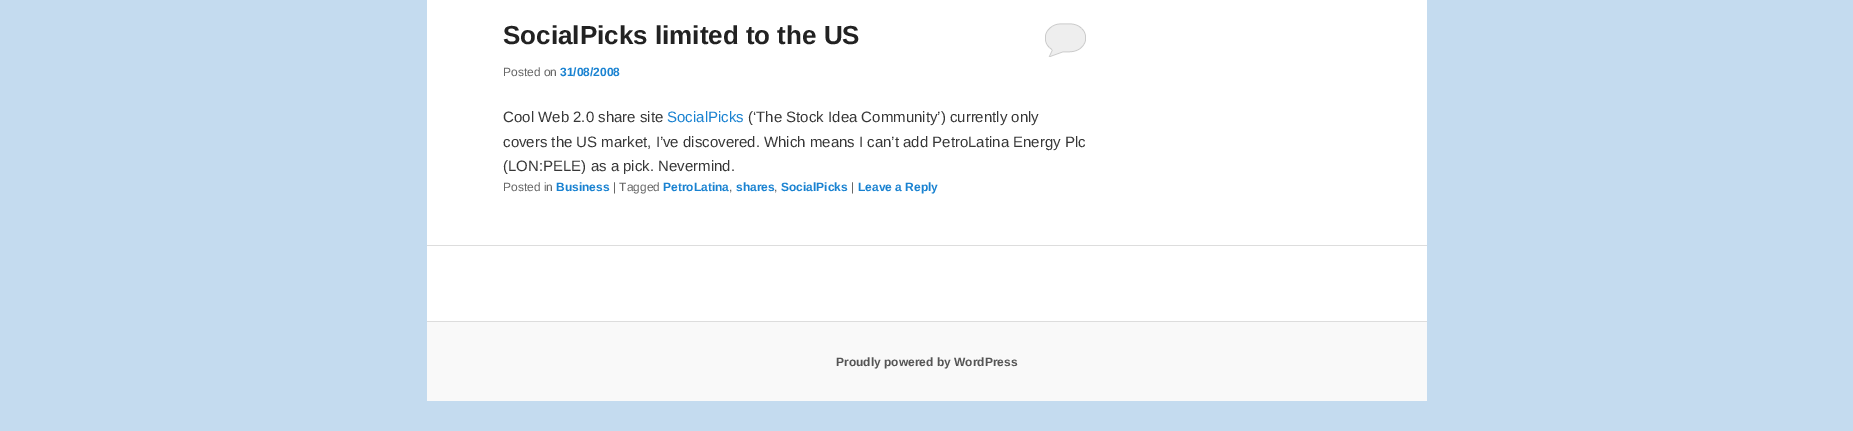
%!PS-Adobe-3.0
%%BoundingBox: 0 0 1853 431
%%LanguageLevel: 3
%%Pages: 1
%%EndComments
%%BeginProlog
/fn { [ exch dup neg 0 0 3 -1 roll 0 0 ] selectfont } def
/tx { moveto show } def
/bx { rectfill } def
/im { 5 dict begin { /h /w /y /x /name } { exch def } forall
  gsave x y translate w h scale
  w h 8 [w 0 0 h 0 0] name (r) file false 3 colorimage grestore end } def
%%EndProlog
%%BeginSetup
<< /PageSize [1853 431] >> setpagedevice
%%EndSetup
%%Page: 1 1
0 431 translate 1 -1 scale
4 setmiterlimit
0.769 0.859 0.937 setrgbcolor
0 0 1853 431 bx
1 setgray
427 0 1000 321 bx
/LiberationSans-Bold 26 fn
0.133 setgray
(SocialPicks limited to the US) 503 44 tx
0.933 setgray
1045 23 41 34 bx
(image0.raw) 1044 21 43 36 im
/LiberationSans-Regular 12 fn
0.4 setgray
(Posted on) 503 76 tx
/LiberationSans-Bold 12 fn
0.098 0.51 0.82 setrgbcolor
(31/08/2008) 560 76 tx
/LiberationSans-Regular 15 fn
0.216 setgray
(Cool Web 2.0 share site) 503 122 tx
0.098 0.51 0.82 setrgbcolor
(SocialPicks) 667 122 tx
0.216 setgray
(\(‘The Stock Idea Community’\) currently only) 748 122 tx
(covers the US market, I’ve discovered. Which means I can’t add PetroLatina Energy Plc) 503 147 tx
(\(LON:PELE\) as a pick. Nevermind.) 503 171 tx
/LiberationSans-Regular 12 fn
0.4 setgray
(Posted in) 503 191 tx
/LiberationSans-Bold 12 fn
0.098 0.51 0.82 setrgbcolor
(Business) 556 191 tx
/LiberationSans-Regular 12 fn
0.4 setgray
(| Tagged) 613 191 tx
/LiberationSans-Bold 12 fn
0.098 0.51 0.82 setrgbcolor
(PetroLatina) 663 191 tx
/LiberationSans-Regular 12 fn
0.4 setgray
(,) 729 191 tx
/LiberationSans-Bold 12 fn
0.098 0.51 0.82 setrgbcolor
(shares) 736 191 tx
/LiberationSans-Regular 12 fn
0.4 setgray
(,) 774 191 tx
/LiberationSans-Bold 12 fn
0.098 0.51 0.82 setrgbcolor
(SocialPicks) 781 191 tx
/LiberationSans-Regular 12 fn
0.4 setgray
(|) 851 191 tx
/LiberationSans-Bold 12 fn
0.098 0.51 0.82 setrgbcolor
(Leave a Reply) 858 191 tx
0.867 setgray
427 245 1000 1 bx
0.976 setgray
427 322 1000 79 bx
0.867 setgray
427 321 1000 1 bx
0.333 setgray
(Proudly powered by WordPress) 836 366 tx
showpage
%%EOF
